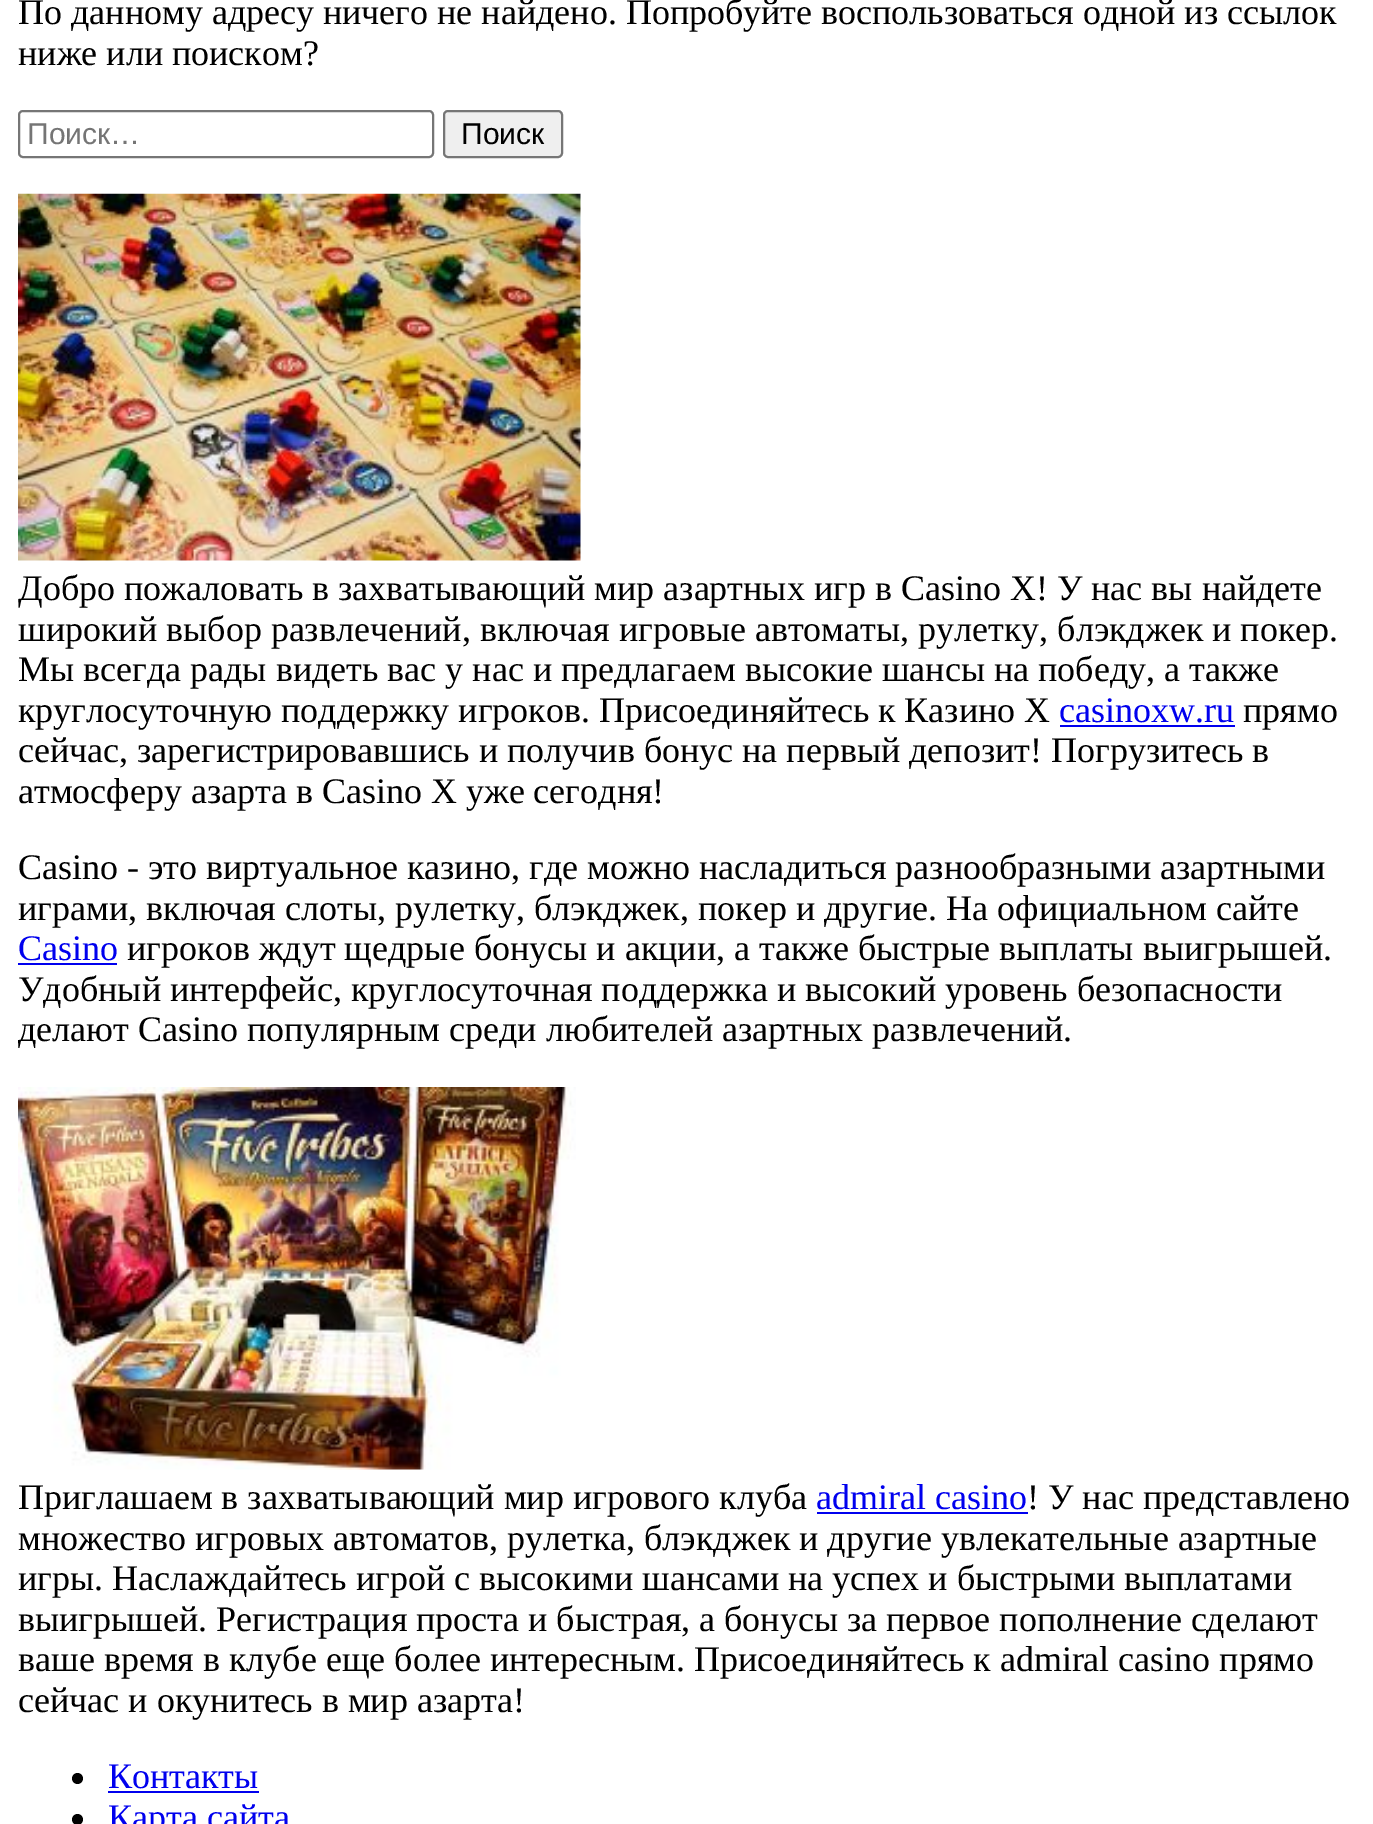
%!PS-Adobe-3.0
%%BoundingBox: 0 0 1373 1824
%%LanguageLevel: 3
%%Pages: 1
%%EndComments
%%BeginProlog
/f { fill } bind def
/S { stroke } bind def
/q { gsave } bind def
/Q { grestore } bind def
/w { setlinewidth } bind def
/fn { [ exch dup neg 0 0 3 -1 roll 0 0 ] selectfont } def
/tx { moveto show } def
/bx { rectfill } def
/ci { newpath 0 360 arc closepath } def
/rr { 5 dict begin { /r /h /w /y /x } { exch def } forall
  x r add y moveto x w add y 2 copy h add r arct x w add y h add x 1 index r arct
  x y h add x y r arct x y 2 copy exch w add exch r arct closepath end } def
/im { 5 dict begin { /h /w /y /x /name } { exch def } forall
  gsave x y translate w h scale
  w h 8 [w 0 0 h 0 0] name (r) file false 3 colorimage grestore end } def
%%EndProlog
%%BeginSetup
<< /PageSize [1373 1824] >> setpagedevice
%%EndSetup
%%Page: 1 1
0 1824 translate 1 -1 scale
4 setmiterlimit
1 setgray
0 0 1373 1824 bx
/LiberationSerif-Regular 36 fn
0 setgray
(По данному адресу ничего не найдено. Попробуйте воспользоваться одной из ссылок) 18 24 tx
(ниже или поиском?) 18 65 tx
0.463 setgray
2 w
19 111 414 46 4 rr S
/LiberationSans-Regular 30 fn
0.459 setgray
(Поиск…) 27 144 tx
0.937 setgray
444 111 118 46 4 rr q f Q
0.463 setgray
S
0 setgray
(Поиск) 461 144 tx
(image0.raw) 18 193 563 368 im
/LiberationSerif-Regular 36 fn
(Добро пожаловать в захватывающий мир азартных игр в Casino X! У нас вы найдете) 18 600 tx
(широкий выбор развлечений, включая игровые автоматы, рулетку, блэкджек и покер.) 18 641 tx
(Мы всегда рады видеть вас у нас и предлагаем высокие шансы на победу, а также) 18 681 tx
(круглосуточную поддержку игроков. Присоединяйтесь к Казино Х) 18 722 tx
0 0 0.933 setrgbcolor
(casinoxw.ru) 1059 722 tx
1060 725 175 2 bx
0 setgray
(прямо) 1243 722 tx
(сейчас, зарегистрировавшись и получив бонус на первый депозит! Погрузитесь в) 18 762 tx
(атмосферу азарта в Casino X уже сегодня!) 18 803 tx
(Casino - это виртуальное казино, где можно насладиться разнообразными азартными) 18 879 tx
(играми, включая слоты, рулетку, блэкджек, покер и другие. На официальном сайте) 18 920 tx
0 0 0.933 setrgbcolor
(Casino) 18 960 tx
18 963 99 2 bx
0 setgray
(игроков ждут щедрые бонусы и акции, а также быстрые выплаты выигрышей.) 127 960 tx
(Удобный интерфейс, круглосуточная поддержка и высокий уровень безопасности) 18 1001 tx
(делают Casino популярным среди любителей азартных развлечений.) 18 1041 tx
(image1.raw) 18 1087 558 383 im
(Приглашаем в захватывающий мир игрового клуба) 18 1509 tx
0 0 0.933 setrgbcolor
(admiral casino) 816 1509 tx
817 1512 211 2 bx
0 setgray
(! У нас представлено) 1027 1509 tx
(множество игровых автоматов, рулетка, блэкджек и другие увлекательные азартные) 18 1550 tx
(игры. Наслаждайтесь игрой с высокими шансами на успех и быстрыми выплатами) 18 1590 tx
(выигрышей. Регистрация проста и быстрая, а бонусы за первое пополнение сделают) 18 1631 tx
(ваше время в клубе еще более интересным. Присоединяйтесь к admiral casino прямо) 18 1671 tx
(сейчас и окунитесь в мир азарта!) 18 1712 tx
77.5 1778.5 5.5 ci f
0 0 0.933 setrgbcolor
(Контакты) 108 1788 tx
108 1791 151 2 bx
0 setgray
77.5 1819.5 5.5 ci f
0 0 0.933 setrgbcolor
(Карта сайта) 108 1829 tx
showpage
%%EOF
